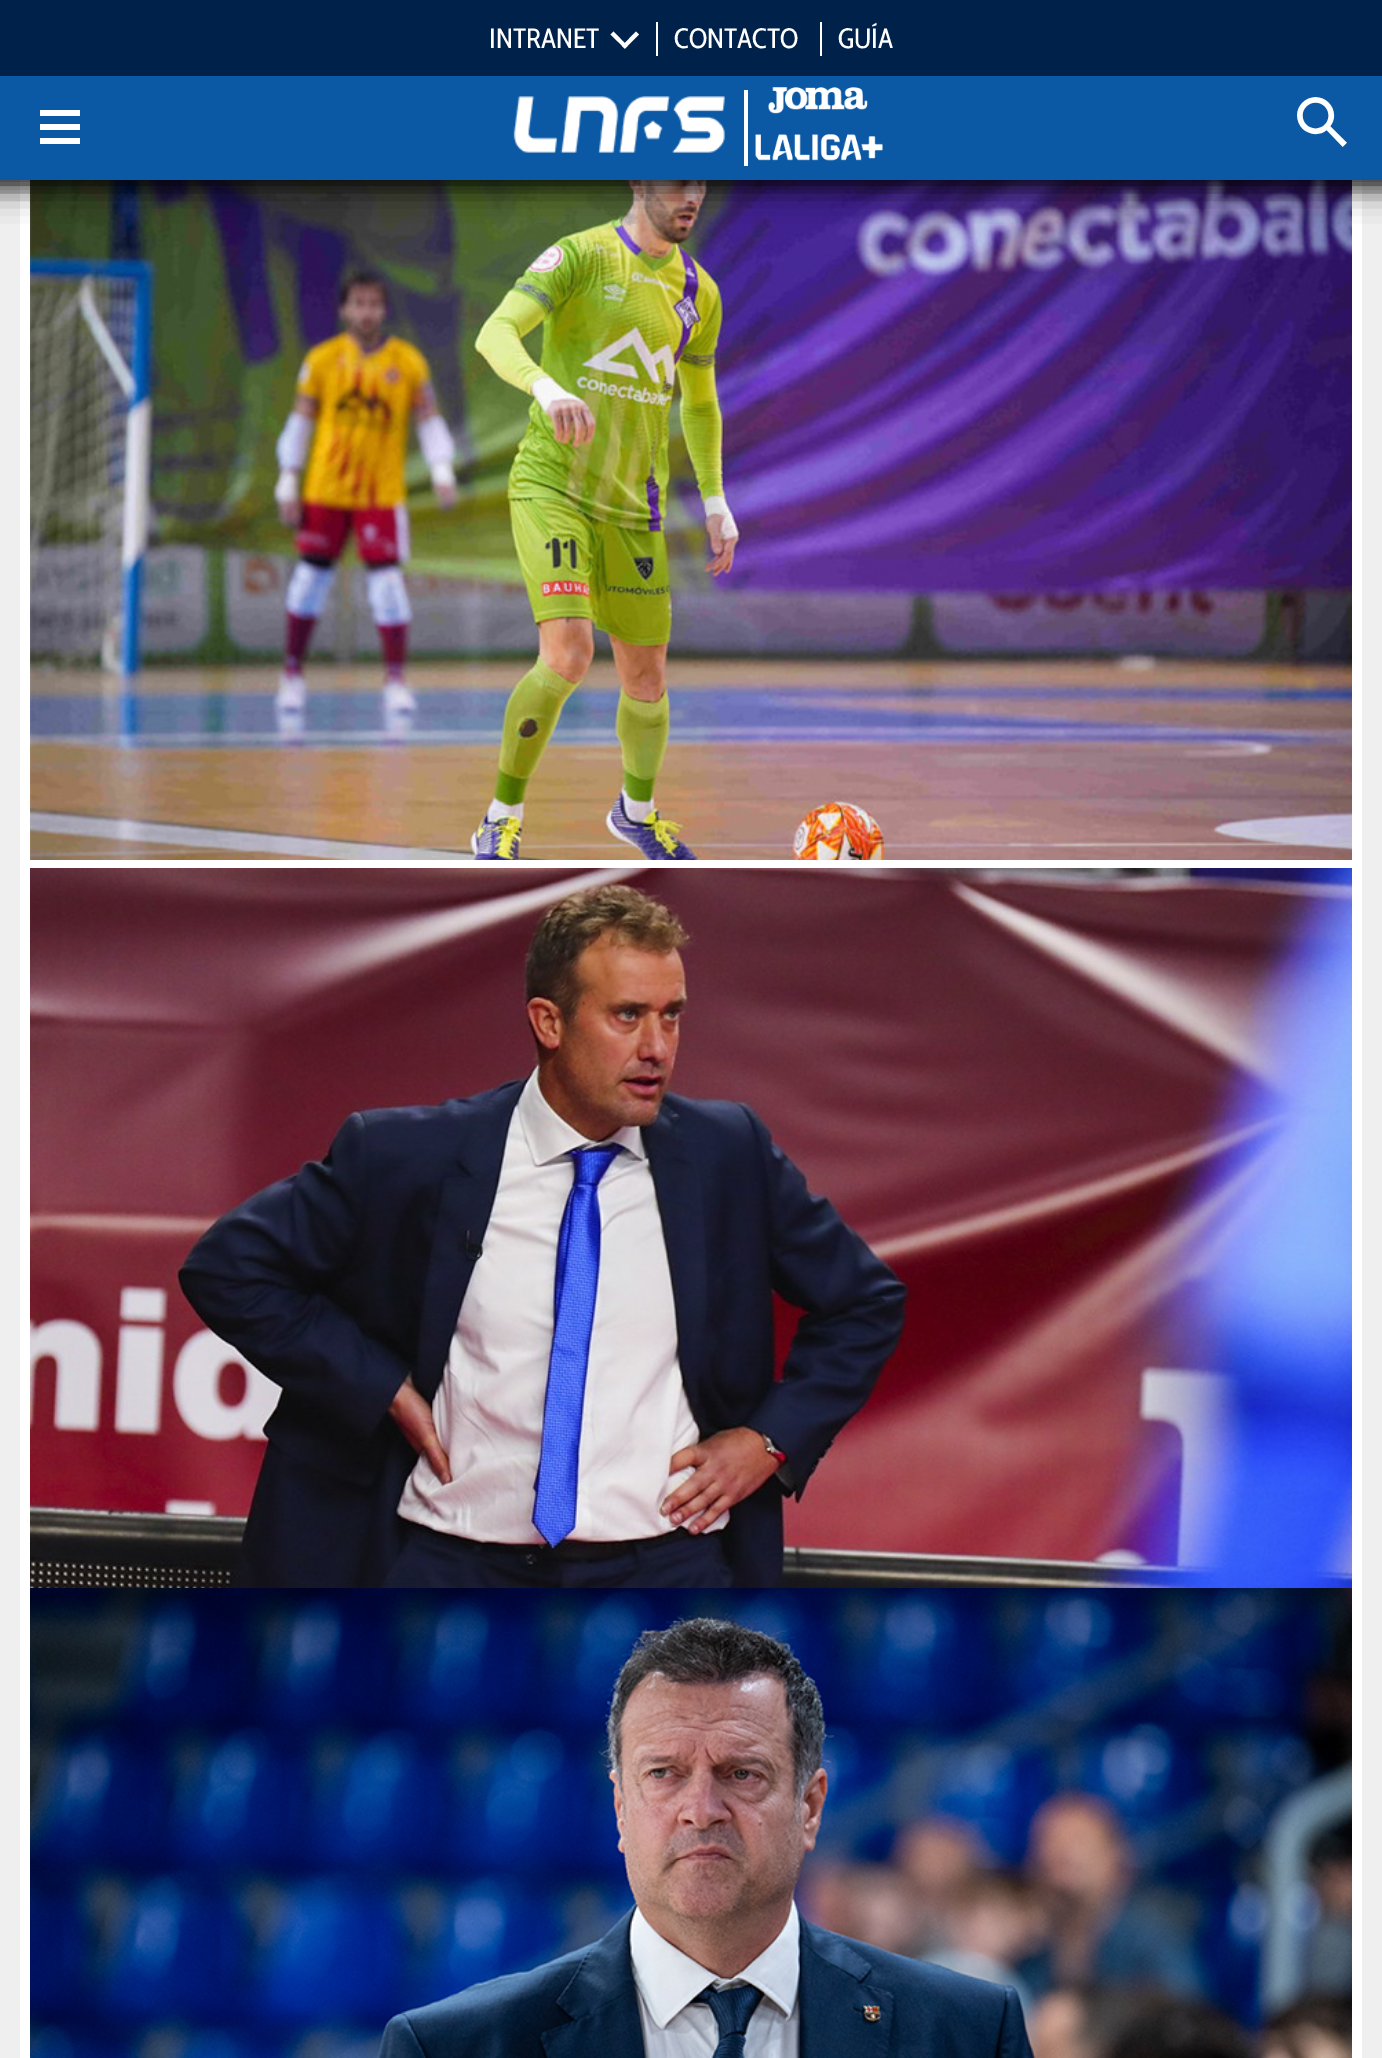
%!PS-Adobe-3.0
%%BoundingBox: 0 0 1382 2058
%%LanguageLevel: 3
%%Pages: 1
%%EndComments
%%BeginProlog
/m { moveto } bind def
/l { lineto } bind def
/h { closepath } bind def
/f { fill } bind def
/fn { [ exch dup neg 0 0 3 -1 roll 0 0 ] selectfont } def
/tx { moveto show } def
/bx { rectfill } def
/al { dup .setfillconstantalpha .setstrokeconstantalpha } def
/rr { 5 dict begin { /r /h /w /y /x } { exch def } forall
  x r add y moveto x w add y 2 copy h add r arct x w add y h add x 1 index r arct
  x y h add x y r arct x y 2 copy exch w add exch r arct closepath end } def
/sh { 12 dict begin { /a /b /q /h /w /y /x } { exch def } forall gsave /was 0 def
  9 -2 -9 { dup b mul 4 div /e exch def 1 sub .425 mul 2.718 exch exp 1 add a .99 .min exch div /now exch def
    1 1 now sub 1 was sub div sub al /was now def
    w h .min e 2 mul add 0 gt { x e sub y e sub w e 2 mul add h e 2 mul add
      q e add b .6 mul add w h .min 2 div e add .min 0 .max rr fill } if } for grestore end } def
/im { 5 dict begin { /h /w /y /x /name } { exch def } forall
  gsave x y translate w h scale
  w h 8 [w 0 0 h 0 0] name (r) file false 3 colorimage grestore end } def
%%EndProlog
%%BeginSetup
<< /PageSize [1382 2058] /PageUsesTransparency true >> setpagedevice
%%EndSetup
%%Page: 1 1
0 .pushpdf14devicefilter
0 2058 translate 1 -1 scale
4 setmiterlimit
0.937 setgray
0 0 1382 2058 bx
1 setgray
20 180 1342 1878 bx
(image4.raw) 30 180 1322 680 im
0 setgray
-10 -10 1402 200 0 15 0.7 sh
-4 72 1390 112 0 8 0.5 sh
0 0.129 0.29 setrgbcolor
0 0 1382 76 bx
/CabinCondensed-Regular 28 fn
1 setgray
(INTRANET) 489 48 tx
636 31.5 m 639 34.5 l 625 48.5 l 622 46 l h f
613.5 31.5 m 627.5 46 l 625 48.5 l 610.5 34.5 l h f
656 22 2 34 bx
(CONTACTO) 674 48 tx
820 22 2 34 bx
(GUÍA) 838 48 tx
0.043 0.349 0.647 setrgbcolor
0 76 1382 104 bx
1 setgray
40 124 40 6 bx
40 110 40 6 bx
40 138 40 6 bx
(image0.raw) 513 96 212 57 im
744 90 4 76 bx
(image1.raw) 768 87 100 27 im
(image2.raw) 755 134 128 27 im
(image3.raw) 1297 97 50 50 im
(image5.raw) 30 868 1322 720 im
(image6.raw) 30 1588 1322 470 im
.poppdf14devicefilter showpage
%%EOF
